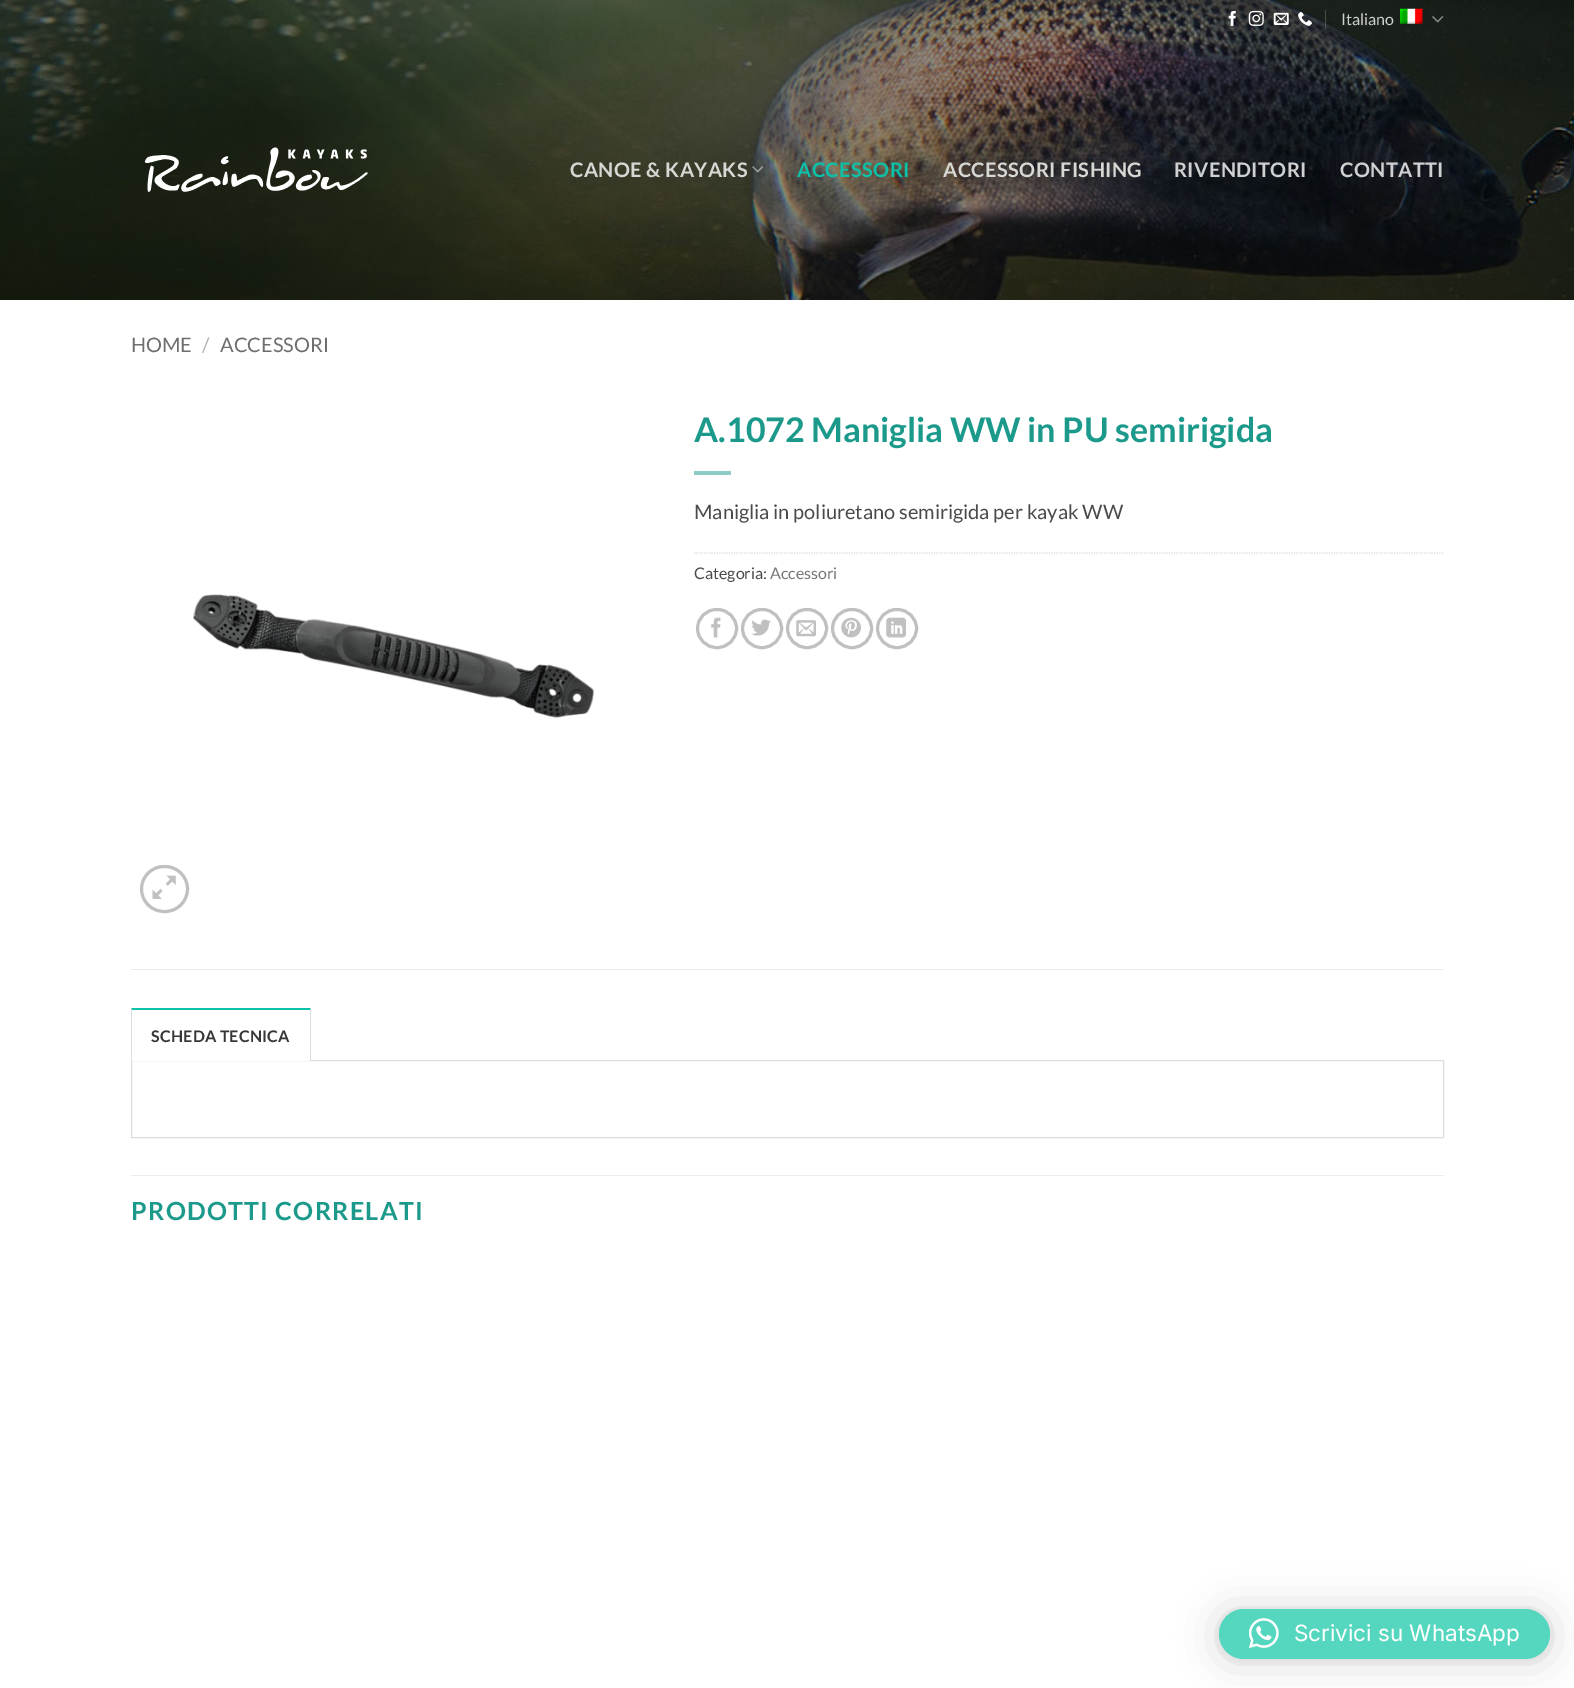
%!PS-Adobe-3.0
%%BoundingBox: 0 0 1574 1688
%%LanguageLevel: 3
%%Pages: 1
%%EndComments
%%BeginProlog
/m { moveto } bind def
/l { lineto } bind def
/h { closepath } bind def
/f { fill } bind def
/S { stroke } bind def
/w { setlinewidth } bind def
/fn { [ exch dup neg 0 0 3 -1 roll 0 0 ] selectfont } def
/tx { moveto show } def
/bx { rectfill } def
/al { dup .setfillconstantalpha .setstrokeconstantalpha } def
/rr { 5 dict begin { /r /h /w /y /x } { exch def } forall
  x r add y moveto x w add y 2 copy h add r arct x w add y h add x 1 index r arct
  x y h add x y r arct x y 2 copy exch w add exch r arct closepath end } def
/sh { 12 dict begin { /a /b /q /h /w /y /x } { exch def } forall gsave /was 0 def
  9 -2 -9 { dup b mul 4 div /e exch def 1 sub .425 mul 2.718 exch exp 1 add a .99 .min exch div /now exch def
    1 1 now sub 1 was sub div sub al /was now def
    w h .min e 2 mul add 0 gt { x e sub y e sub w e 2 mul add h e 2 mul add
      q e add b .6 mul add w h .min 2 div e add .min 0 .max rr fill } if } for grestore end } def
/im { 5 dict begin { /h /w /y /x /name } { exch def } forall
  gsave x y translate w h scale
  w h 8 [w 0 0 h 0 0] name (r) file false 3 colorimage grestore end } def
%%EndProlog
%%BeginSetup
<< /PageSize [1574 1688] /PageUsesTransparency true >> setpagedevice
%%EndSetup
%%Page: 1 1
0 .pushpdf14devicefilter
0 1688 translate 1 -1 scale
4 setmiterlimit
1 setgray
0 0 1574 1688 bx
(image0.raw) 0 0 1574 300 im
(image1.raw) 1228 10 8 16 im
(image2.raw) 1248 10 16 16 im
(image3.raw) 1273 12 16 13 im
(image4.raw) 1298 11 14 15 im
0.2 al
1325 10 1 19 bx
/Lato-Regular 16 fn
1 al
0.812 0.816 0.82 setrgbcolor
(Italiano) 1341 25 tx
(image5.raw) 1400 8 23 16 im
(image6.raw) 1432 16 12 7 im
(image7.raw) 144 147 224 45 im
/Lato-Bold 20 fn
0.843 0.847 0.831 setrgbcolor
570 177 m 0.4 0 (CANOE & KAYAKS) ashow
(image8.raw) 752 166 12 7 im
0.047 0.757 0.655 setrgbcolor
797 177 m 0.4 0 (ACCESSORI) ashow
0.843 0.847 0.831 setrgbcolor
943 177 m 0.4 0 (ACCESSORI FISHING) ashow
0.812 0.816 0.82 setrgbcolor
1174 177 m 0.4 0 (RIVENDITORI) ashow
1340 177 m 0.4 0 (CONTATTI) ashow
/Lato-Regular 20 fn
0.431 setgray
(HOME) 131 352 tx
0.698 setgray
(/) 202 352 tx
0.431 setgray
(ACCESSORI) 220 352 tx
/Lato-Bold 34 fn
0.106 0.6 0.545 setrgbcolor
(A.1072 Maniglia WW in PU semirigida) 694 442 tx
0.553 0.8 0.773 setrgbcolor
694 471 37 4 bx
/Lato-Regular 20 fn
0.29 setgray
(Maniglia in poliuretano semirigida per kayak WW) 694 519 tx
0.867 setgray
1.2 w
[1.25 1.25] 0 setdash
694 553 m 1444 553 l S
/Lato-Regular 16 fn
0.29 setgray
(Categoria:) 694 579 tx
0.467 setgray
(Accessori) 770 579 tx
0.753 setgray
3 w
[] 0 setdash
697.5 609.5 39 38 19 rr S
(image9.raw) 711 617 10 21 im
742.5 609.5 39 38 19 rr S
(image10.raw) 751 619 20 17 im
787.5 609.5 39 38 19 rr S
(image11.raw) 796 620 20 17 im
832.5 609.5 39 38 19 rr S
(image12.raw) 841 617 20 21 im
877.5 609.5 39 38 19 rr S
(image13.raw) 886 617 20 21 im
(image14.raw) 193 594 402 124 im
141.5 866.5 46 45 22.5 rr S
(image15.raw) 152 875 24 24 im
0.925 setgray
131 969 1313 1 bx
0.867 setgray
1 w
131.5 1060.5 1312 77 rectstroke
1 setgray
131 1060 180 1 bx
0.047 0.757 0.655 setrgbcolor
131 1008 m 311 1008 l 310 1010 l 132 1010 l h f
0.867 setgray
311 1008 m 311 1061 l 310 1061 l 310 1010 l h f
131 1061 m 131 1008 l 132 1010 l 132 1061 l h f
/Lato-Bold 16 fn
0.212 setgray
151 1042 m 0.25 0 (SCHEDA TECNICA) ashow
0.925 setgray
131 1175 1313 1 bx
/Lato-Bold 25 fn
0.106 0.6 0.545 setrgbcolor
131 1220 m 1.25 0 (PRODOTTI CORRELATI) ashow
0 setgray
1219 1611 331 50 25 20 0.16 sh
1219 1610 331 50 25 4 0.06 sh
0.333 0.839 0.745 setrgbcolor
1219 1609 331 50 25 rr f
(image16.raw) 1248 1618 31 30 im
/Inter-Regular 22.5 fn
1 setgray
(Scrivici su WhatsApp) 1294 1641 tx
.poppdf14devicefilter showpage
%%EOF
